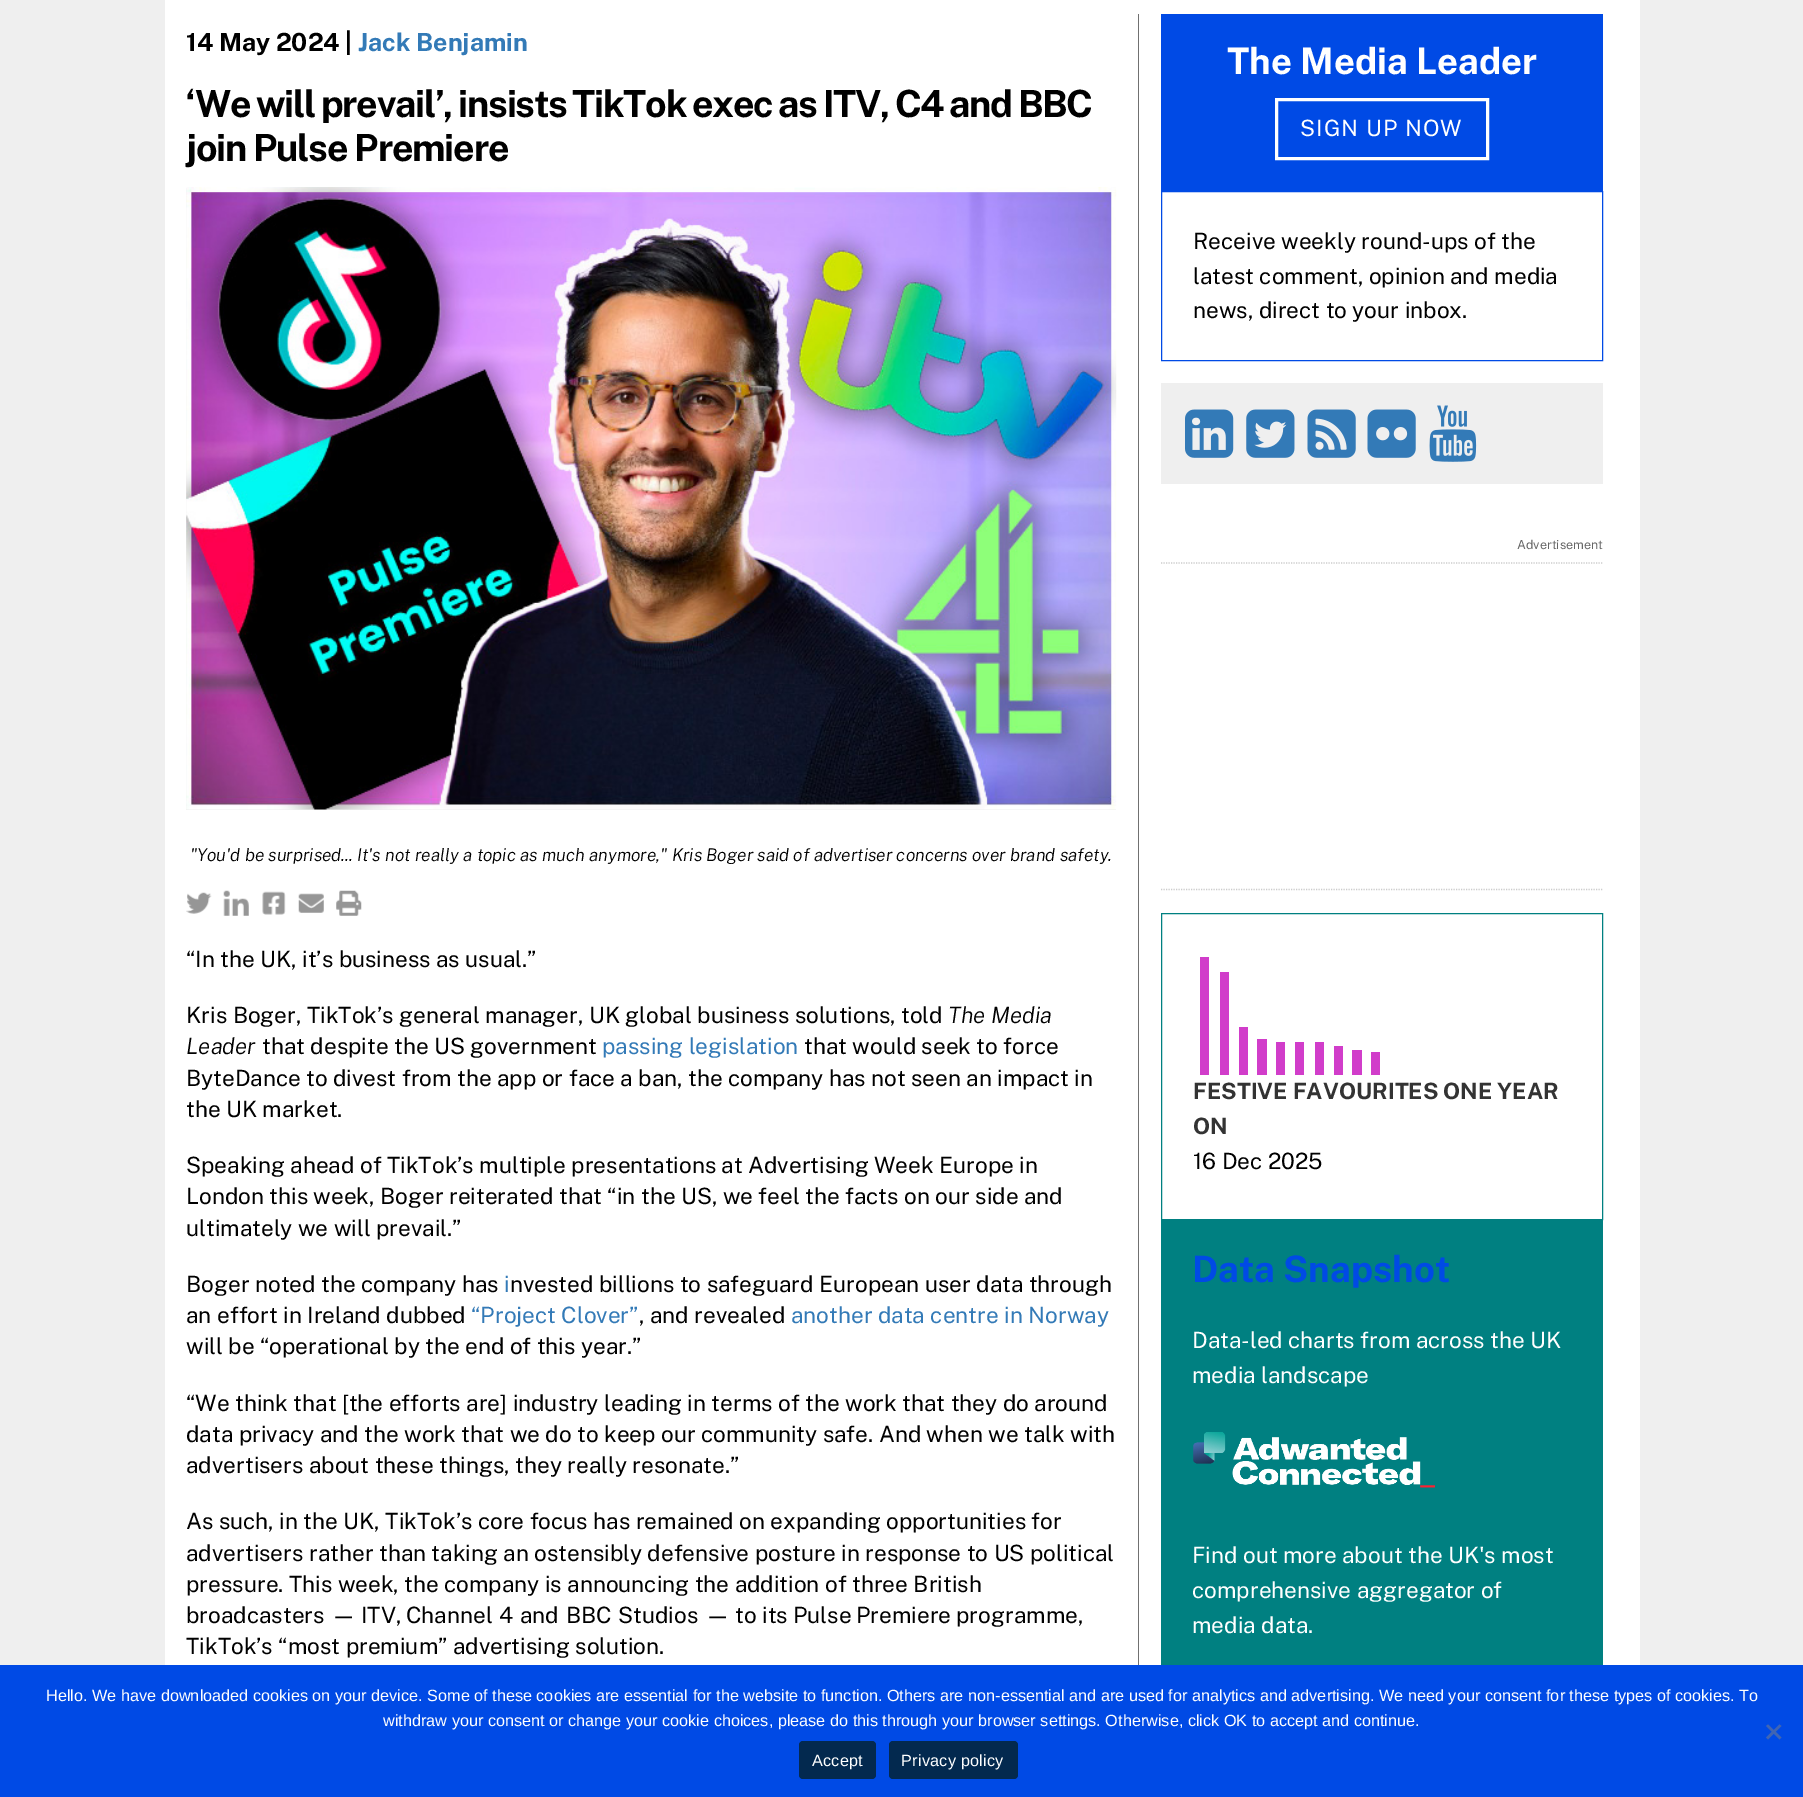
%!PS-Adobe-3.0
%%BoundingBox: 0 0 1803 1797
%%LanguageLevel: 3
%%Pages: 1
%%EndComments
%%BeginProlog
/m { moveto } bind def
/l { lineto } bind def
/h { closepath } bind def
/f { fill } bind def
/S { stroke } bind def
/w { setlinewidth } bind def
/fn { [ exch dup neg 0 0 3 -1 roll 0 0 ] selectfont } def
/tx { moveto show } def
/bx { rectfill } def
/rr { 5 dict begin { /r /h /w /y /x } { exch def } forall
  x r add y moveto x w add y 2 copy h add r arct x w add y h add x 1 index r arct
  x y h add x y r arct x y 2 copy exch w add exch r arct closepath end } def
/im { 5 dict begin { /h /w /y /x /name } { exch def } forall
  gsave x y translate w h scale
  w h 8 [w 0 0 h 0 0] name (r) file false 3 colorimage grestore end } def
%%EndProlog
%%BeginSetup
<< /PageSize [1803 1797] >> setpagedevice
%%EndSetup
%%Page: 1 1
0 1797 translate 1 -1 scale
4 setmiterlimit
0.937 setgray
0 0 1803 1797 bx
1 setgray
165 0 1475 1665 bx
/PublicSans-Bold 25 fn
0 setgray
(14 May 2024 |) 186 51 tx
0.2 0.478 0.718 setrgbcolor
(Jack Benjamin) 358 51 tx
/PublicSans-Bold 37.5 fn
0 setgray
186 117 m -1.5 0 32 -1.25 0 (‘We will prevail’, insists TikTok exec as ITV, C4 and BBC) awidthshow
186 161 m -1.25 0 (join Pulse Premiere) ashow
0.933 setgray
186 188 930 622 bx
(image0.raw) 186 187 931 623 im
/PublicSans-ThinItalic 17.5 fn
0 setgray
("You'd be surprised... It's not really a topic as much anymore," Kris Boger said of advertiser concerns over brand safety.) 190 861 tx
(image1.raw) 186 892 26 22 im
(image2.raw) 223 890 26 26 im
(image3.raw) 262 891 24 24 im
(image4.raw) 298 893 26 20 im
(image5.raw) 336 890 26 26 im
/PublicSans-Regular 22.5 fn
(“In the UK, it’s business as usual.”) 186 967 tx
(Kris Boger, TikTok’s general manager, UK global business solutions, told) 186 1023 tx
/PublicSans-ThinItalic 22.5 fn
(The Media) 948 1023 tx
(Leader) 186 1054 tx
/PublicSans-Regular 22.5 fn
(that despite the US government) 262 1054 tx
0.2 0.478 0.718 setrgbcolor
(passing legislation) 602 1054 tx
0 setgray
(that would seek to force) 804 1054 tx
(ByteDance to divest from the app or face a ban, the company has not seen an impact in) 186 1086 tx
(the UK market.) 186 1117 tx
(Speaking ahead of TikTok’s multiple presentations at Advertising Week Europe in) 186 1173 tx
(London this week, Boger reiterated that “in the US, we feel the facts on our side and) 186 1204 tx
(ultimately we will prevail.”) 186 1236 tx
(Boger noted the company has) 186 1292 tx
0.2 0.478 0.718 setrgbcolor
(i) 504 1292 tx
0 setgray
(nvested billions to safeguard European user data through) 510 1292 tx
(an effort in Ireland dubbed) 186 1323 tx
0.2 0.478 0.718 setrgbcolor
(“Project Clover”) 471 1323 tx
0 setgray
(, and revealed) 639 1323 tx
0.2 0.478 0.718 setrgbcolor
(another data centre in Norway) 791 1323 tx
0 setgray
(will be “operational by the end of this year.”) 186 1354 tx
(“We think that [the efforts are] industry leading in terms of the work that they do around) 186 1411 tx
(data privacy and the work that we do to keep our community safe. And when we talk with) 186 1442 tx
(advertisers about these things, they really resonate.”) 186 1473 tx
(As such, in the UK, TikTok’s core focus has remained on expanding opportunities for) 186 1529 tx
(advertisers rather than taking an ostensibly defensive posture in response to US political) 186 1561 tx
(pressure. This week, the company is announcing the addition of three British) 186 1592 tx
186 1623 m 1.25 0 32 (broadcasters —) widthshow
361 1623 m 1.25 0 32 (ITV,) widthshow
406 1623 m 1.25 0 32 (Channel 4 and BBC Studios —) widthshow
735 1623 m 1.25 0 32 (to) widthshow
762 1623 m 1.25 0 32 (its) widthshow
793 1623 m 1.25 0 32 (Pulse) widthshow
856 1623 m 1.25 0 32 (Premiere) widthshow
956 1623 m 1.25 0 32 (programme,) widthshow
(TikTok’s “most premium” advertising solution.) 186 1654 tx
0.439 setgray
1138 14 1 1651 bx
0 0.29 0.898 setrgbcolor
1161 14 442 177 bx
/PublicSans-Bold 36.5 fn
1 setgray
(The Media Leader) 1227 74 tx
3 w
1276.5 99.5 211 59 rectstroke
/PublicSans-Regular 22.5 fn
1300 136 m 1.1 0 (SIGN UP NOW) ashow
0 0.29 0.898 setrgbcolor
1 w
1161.5 191.5 441 169 rectstroke
0 setgray
(Receive weekly round-ups of the) 1193 249 tx
(latest comment, opinion and media) 1193 284 tx
(news, direct to your inbox.) 1193 318 tx
0.937 setgray
1161 383 442 101 bx
(image6.raw) 1185 409 49 49 im
(image7.raw) 1246 409 49 49 im
(image8.raw) 1307 409 49 49 im
(image9.raw) 1367 409 49 49 im
(image10.raw) 1429 405 48 57 im
/PublicSans-Regular 12.5 fn
0.4 setgray
(Advertisement) 1517 549 tx
0.8 setgray
1.2 w
[1.25 1.25] 0 setdash
1161 563 m 1602.5 563 l S
1161 889.5 m 1602.5 889.5 l S
0 0.502 0.506 setrgbcolor
1161 1220 442 445 bx
1 w
[] 0 setdash
1161.5 913.5 441 306 rectstroke
0.82 0.239 0.792 setrgbcolor
1200 957 9 118 bx
1220 972 9 103 bx
1239 1027 9 48 bx
1257 1039 10 36 bx
1276 1042 9 33 bx
1295 1042 9 33 bx
1315 1042 9 33 bx
1334 1046 9 29 bx
1352 1050 10 25 bx
1371 1052 9 23 bx
/PublicSans-Bold 22.5 fn
0.2 setgray
(FESTIVE FAVOURITES ONE YEAR) 1193 1099 tx
(ON) 1193 1134 tx
/PublicSans-Regular 22.5 fn
0 setgray
(16 Dec 2025) 1193 1169 tx
/PublicSans-Bold 36.5 fn
0 0.29 0.898 setrgbcolor
(Data Snapshot) 1192 1282 tx
/PublicSans-Regular 22.5 fn
1 setgray
(Data-led charts from across the UK) 1192 1348 tx
(media landscape) 1192 1383 tx
(image11.raw) 1193 1432 242 56 im
(Find out more about the UK's most) 1192 1563 tx
(comprehensive aggregator of) 1192 1598 tx
(media data.) 1192 1633 tx
0 0.29 0.898 setrgbcolor
0 1665 1803 132 bx
/LiberationSans-Regular 16.25 fn
1 setgray
(Hello. We have downloaded cookies on your device. Some of these cookies are essential for the website to function. Others are non-essential and are used for analytics and advertising. We need your consent for these types of cookies. To) 46 1701 tx
(withdraw your consent or change your cookie choices, please do this through your browser settings. Otherwise, click OK to accept and continue.) 383 1726 tx
0.251 0.396 0.702 setrgbcolor
1779.5 1724.5 m 1781.5 1726 l 1768 1739.5 l 1766 1737.5 l h f
1766 1726 m 1768 1724.5 l 1781.5 1737.5 l 1779.5 1739.5 l h f
0.012 0.161 0.31 setrgbcolor
799 1741 77 38 4 rr f
1 setgray
812 1766 m 0.25 0 (Accept) ashow
0.012 0.161 0.31 setrgbcolor
889 1741 129 38 4 rr f
1 setgray
901 1766 m 0.25 0 (Privacy policy) ashow
showpage
%%EOF
